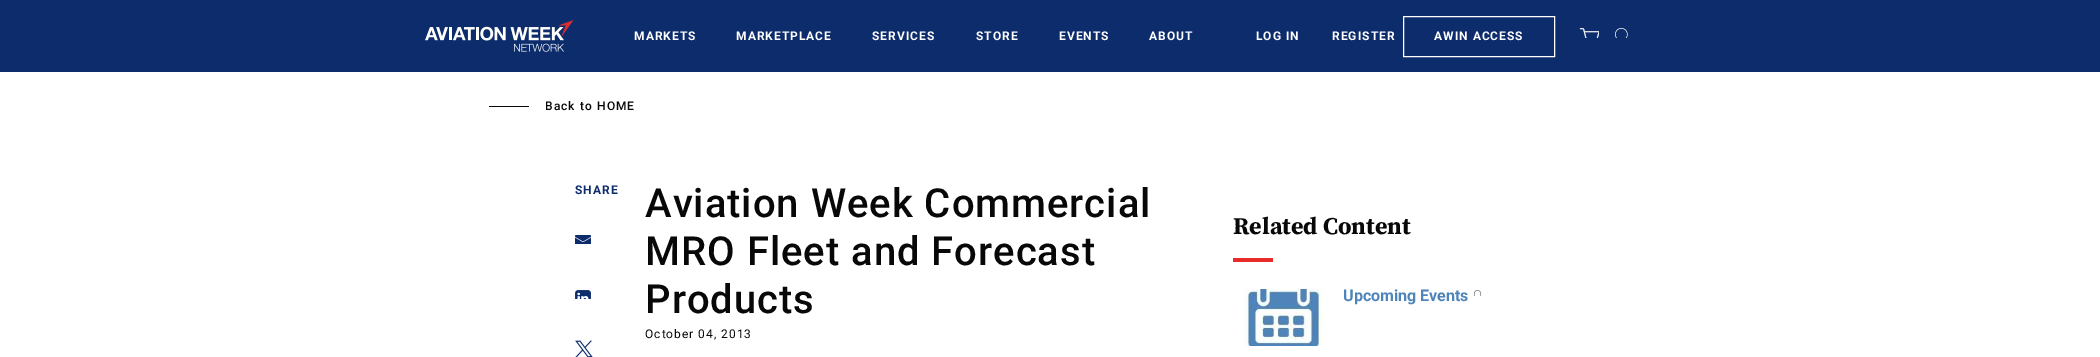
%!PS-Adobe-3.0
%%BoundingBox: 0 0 2100 357
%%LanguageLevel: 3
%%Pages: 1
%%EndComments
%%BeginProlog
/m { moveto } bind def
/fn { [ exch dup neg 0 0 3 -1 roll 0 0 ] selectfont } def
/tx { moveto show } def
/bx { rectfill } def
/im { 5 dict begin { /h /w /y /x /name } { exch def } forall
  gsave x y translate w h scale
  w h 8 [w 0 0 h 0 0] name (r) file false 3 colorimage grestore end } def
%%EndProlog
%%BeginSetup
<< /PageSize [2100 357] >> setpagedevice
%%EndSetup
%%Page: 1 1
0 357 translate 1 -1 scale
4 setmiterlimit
1 setgray
0 0 2100 357 bx
0.051 0.173 0.42 setrgbcolor
0 0 2100 72 bx
(image0.raw) 425 20 149 32 im
/Roboto-Bold 12 fn
1 setgray
634 40 m 1 0 (MARKETS) ashow
736 40 m 1 0 (MARKETPLACE) ashow
872 40 m 1 0 (SERVICES) ashow
976 40 m 1 0 (STORE) ashow
1059 40 m 1 0 (EVENTS) ashow
1149 40 m 1 0 (ABOUT) ashow
1256 40 m 1 0 (LOG IN) ashow
1332 40 m 1 0 (REGISTER) ashow
1403.5 16.5 151 40 rectstroke
1434 40 m 1 0 (AWIN ACCESS) ashow
(image1.raw) 1579 28 20 10 im
(image2.raw) 1615 28 13 10 im
0.031 setgray
489 106 40 1 bx
/Roboto-Medium 12 fn
545 110 m 1 0 (Back to) ashow
597 110 m 1 0 (HOME) ashow
/Roboto-Bold 12 fn
0.051 0.173 0.42 setrgbcolor
575 194 m 1 0 (SHARE) ashow
(image3.raw) 575 235 16 9 im
(image4.raw) 575 290 16 9 im
(image5.raw) 575 340 18 17 im
/Roboto-Medium 40 fn
0.031 setgray
645 217 m 1 0 (Aviation Week Commercial) ashow
645 265 m 1 0 (MRO Fleet and Forecast) ashow
645 313 m 1 0 (Products) ashow
/Roboto-Regular 12 fn
645 338 m 1 0 (October 04, 2013) ashow
/SourceSerifPro-Bold 24 fn
(Related Content) 1233 234 tx
0.906 0.173 0.165 setrgbcolor
1233 258 40 4 bx
(image6.raw) 1243 289 80 57 im
/Roboto-Bold 16 fn
0.302 0.522 0.729 setrgbcolor
(Upcoming Events) 1343 301 tx
(image7.raw) 1473 290 9 6 im
showpage
%%EOF
